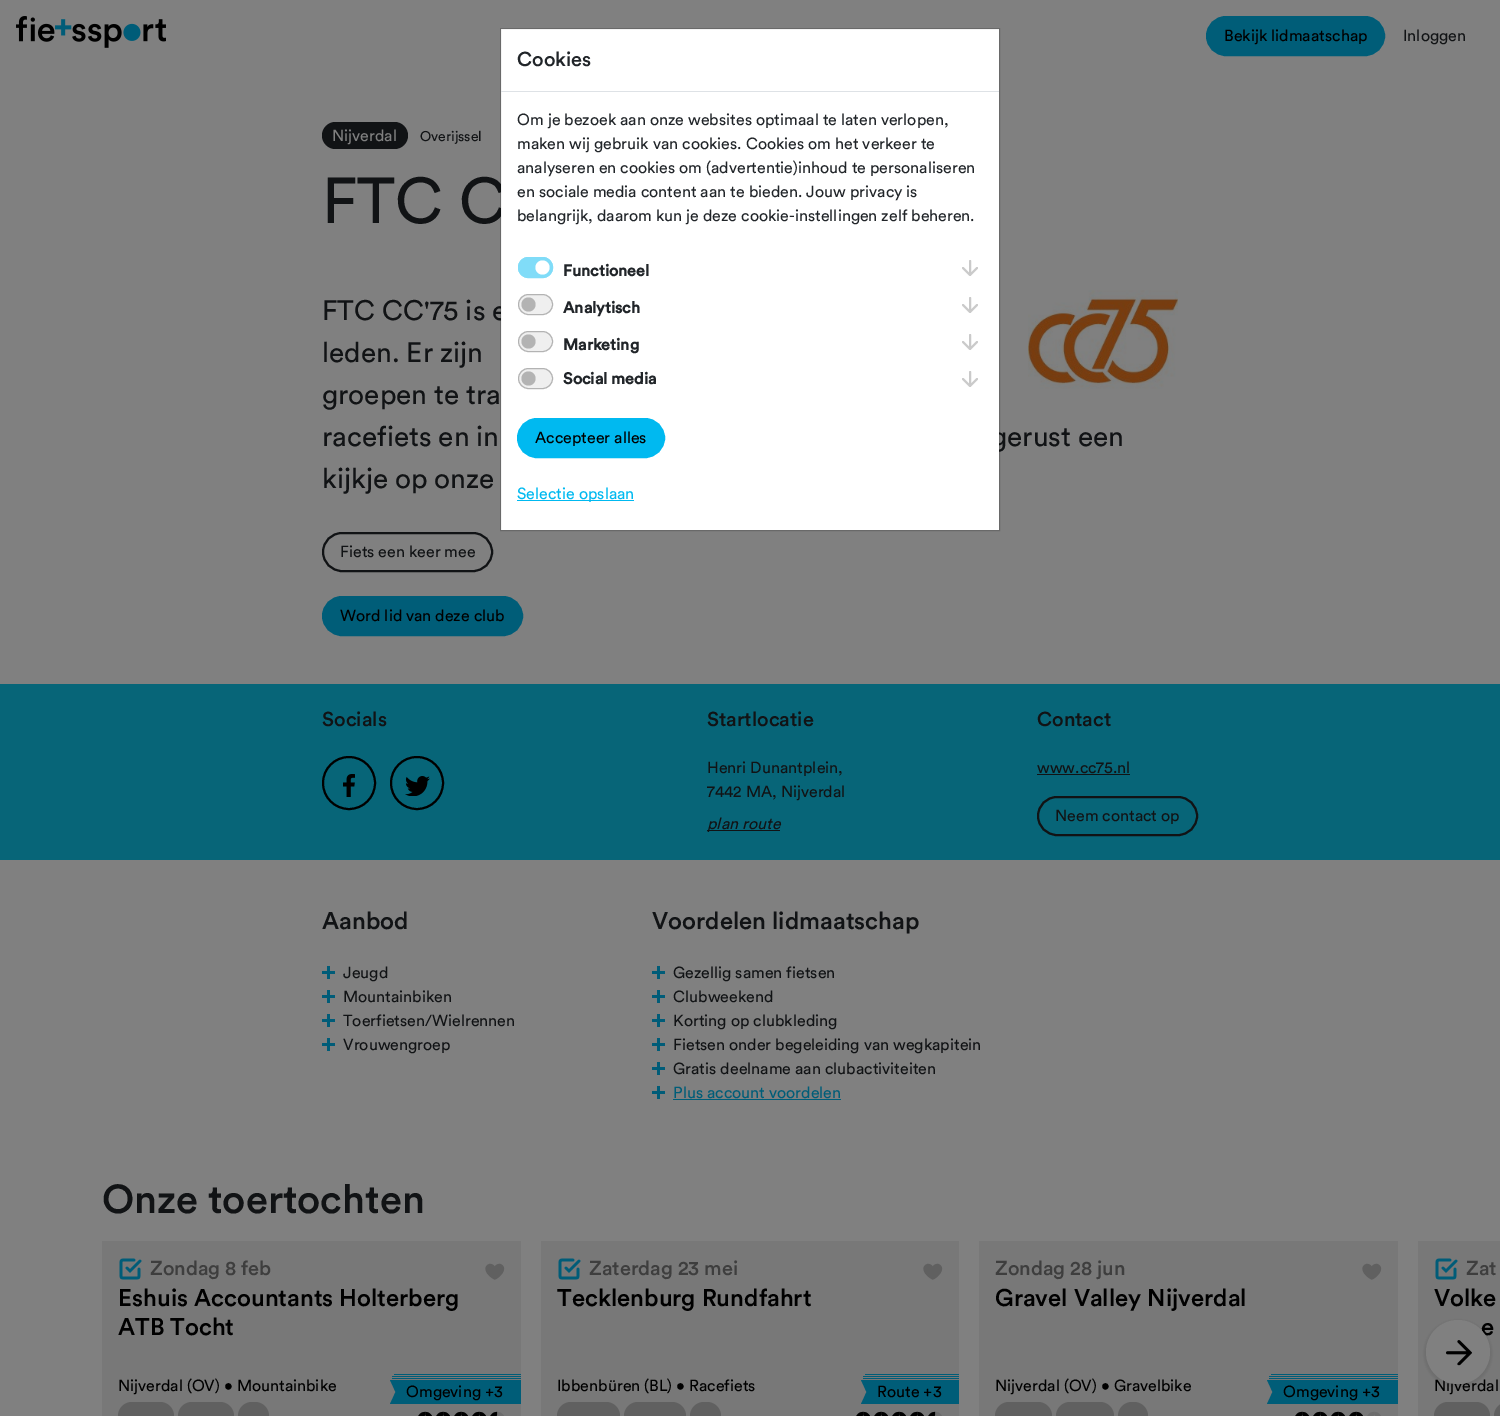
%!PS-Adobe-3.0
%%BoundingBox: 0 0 1500 1416
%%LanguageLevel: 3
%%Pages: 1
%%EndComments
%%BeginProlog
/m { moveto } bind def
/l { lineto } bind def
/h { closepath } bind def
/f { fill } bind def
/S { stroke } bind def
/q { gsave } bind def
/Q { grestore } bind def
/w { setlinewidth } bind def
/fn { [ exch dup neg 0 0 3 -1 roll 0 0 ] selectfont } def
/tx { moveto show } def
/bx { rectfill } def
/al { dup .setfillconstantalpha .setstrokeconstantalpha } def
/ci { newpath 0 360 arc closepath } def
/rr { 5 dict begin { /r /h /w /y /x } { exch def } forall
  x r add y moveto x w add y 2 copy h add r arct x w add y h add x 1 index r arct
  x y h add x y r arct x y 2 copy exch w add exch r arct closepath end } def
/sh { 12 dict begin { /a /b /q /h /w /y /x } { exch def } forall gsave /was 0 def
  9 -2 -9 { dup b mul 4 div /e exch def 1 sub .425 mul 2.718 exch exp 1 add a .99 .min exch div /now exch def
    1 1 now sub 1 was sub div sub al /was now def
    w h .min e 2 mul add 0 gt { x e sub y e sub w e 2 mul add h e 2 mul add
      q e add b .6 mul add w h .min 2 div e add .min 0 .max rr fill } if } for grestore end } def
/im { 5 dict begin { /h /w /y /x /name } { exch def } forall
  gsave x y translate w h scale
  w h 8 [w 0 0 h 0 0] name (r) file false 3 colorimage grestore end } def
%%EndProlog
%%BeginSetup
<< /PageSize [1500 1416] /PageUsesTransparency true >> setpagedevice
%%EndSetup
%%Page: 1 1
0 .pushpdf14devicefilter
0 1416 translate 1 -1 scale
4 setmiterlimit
0.502 setgray
0 0 1500 1416 bx
(image0.raw) 16 16 150 32 im
0 0.365 0.471 setrgbcolor
1207 17 177 38 19 rr q f Q
2 w
S
/Circular-Regular 16 fn
0 setgray
(Bekijk lidmaatschap) 1224 41 tx
0.067 0.075 0.082 setrgbcolor
(Inloggen) 1403 41 tx
/Circular-Regular 64 fn
(FTC C) 322 223 tx
/Circular-Regular 28 fn
(FTC CC'75 is e) 322 320 tx
(gerust een) 991 446 tx
1 setgray
501 29 498 501 bx
0.18 al
0 setgray
1 w
500.5 28.5 499 502 rectstroke
1 al
0.871 0.886 0.902 setrgbcolor
501 91 498 1 bx
/Circular-Medium 20 fn
0.129 0.145 0.161 setrgbcolor
(Cookies) 517 66 tx
/Circular-Regular 16 fn
(Om je bezoek aan onze websites optimaal te laten verlopen,) 517 125 tx
(maken wij gebruik van cookies. Cookies om het verkeer te) 517 149 tx
(analyseren en cookies om \(advertentie\)inhoud te personaliseren) 517 173 tx
(en sociale media content aan te bieden. Jouw privacy is) 517 197 tx
(belangrijk, daarom kun je deze cookie-instellingen zelf beheren.) 517 221 tx
0.502 0.863 0.973 setrgbcolor
518 257 35 21 10.5 rr f
1 setgray
542.5 267.5 7 ci f
0.502 0.863 0.973 setrgbcolor
518.5 257.5 34 20 10 rr S
/Circular-Bold 16 fn
0.129 0.145 0.161 setrgbcolor
(Functioneel) 563 276 tx
0.792 setgray
2 w
1 setlinecap
1 setlinejoin
970 261 m 970 275 l 977 268 m 970 275 l 963 268 l 970 298 m 970 312 l 977 305 m 970 312 l 963 305 l S
0.937 setgray
518 294 35 21 10.5 rr f
0.702 setgray
528.5 304.5 7 ci f
0.25 al
0 setgray
1 w
0 setlinecap
0 setlinejoin
518.5 294.5 34 20 10 rr S
1 al
0.129 0.145 0.161 setrgbcolor
(Analytisch) 563 313 tx
0.937 setgray
518 331 35 21 10.5 rr f
0.702 setgray
528.5 341.5 7 ci f
0.25 al
0 setgray
518.5 331.5 34 20 10 rr S
1 al
0.129 0.145 0.161 setrgbcolor
(Marketing) 563 350 tx
0.792 setgray
2 w
1 setlinecap
1 setlinejoin
970 335 m 970 349 l 977 342 m 970 349 l 963 342 l 970 372 m 970 386 l 977 379 m 970 386 l 963 379 l S
0.937 setgray
518 368 35 21 10.5 rr f
0.702 setgray
528.5 378.5 7 ci f
0.25 al
0 setgray
1 w
0 setlinecap
0 setlinejoin
518.5 368.5 34 20 10 rr S
1 al
0.129 0.145 0.161 setrgbcolor
(Social media) 563 384 tx
0 0.725 0.941 setrgbcolor
518 419 146 38 19 rr q f Q
2 w
S
/Circular-Regular 16 fn
0 setgray
(Accepteer alles) 535 443 tx
0 0.725 0.941 setrgbcolor
517 500 117 1 bx
(Selectie opslaan) 517 499 tx
0.067 0.075 0.082 setrgbcolor
322 122 86 27 13.5 rr f
0.502 setgray
(Nijverdal) 332 141 tx
/Circular-Regular 14 fn
0.067 0.075 0.082 setrgbcolor
(Overijssel) 420 141 tx
(image1.raw) 1028 290 150 99 im
/Circular-Regular 28 fn
(leden. Er zijn) 322 362 tx
(groepen te tra) 322 404 tx
(racefiets en in) 322 446 tx
(kijkje op onze) 322 488 tx
323 533 169 38 19 rr S
/Circular-Regular 16 fn
(Fiets een keer mee) 340 557 tx
0 0.365 0.471 setrgbcolor
323 597 199 38 19 rr q f Q
S
0 setgray
(Word lid van deze club) 340 621 tx
0.027 0.396 0.471 setrgbcolor
0 684 1500 176 bx
/Circular-Medium 20 fn
0.067 0.075 0.082 setrgbcolor
(Socials) 322 726 tx
0 setgray
349 783 26 ci S
(image2.raw) 343 774 12 23 im
417 783 26 ci S
(image3.raw) 405 776 25 20 im
0.067 0.075 0.082 setrgbcolor
(Startlocatie) 707 726 tx
/Circular-Regular 16 fn
(Henri Dunantplein,) 707 773 tx
(7442 MA, Nijverdal) 707 797 tx
707 830 73 1 bx
/Circular-Italic 16 fn
(plan route) 707 829 tx
/Circular-Medium 20 fn
(Contact) 1037 726 tx
/Circular-Regular 16 fn
(www.cc75.nl) 1037 773 tx
1037 774 93 1 bx
1038 797 159 38 19 rr S
(Neem contact op) 1055 821 tx
/Circular-Medium 24 fn
(Aanbod) 322 929 tx
(image4.raw) 322 966 13 13 im
/Circular-Regular 16 fn
(Jeugd) 343 978 tx
(image4.raw) 322 990 13 13 im
(Mountainbiken) 343 1002 tx
(image4.raw) 322 1014 13 13 im
(Toerfietsen/Wielrennen) 343 1026 tx
(image4.raw) 322 1038 13 13 im
(Vrouwengroep) 343 1050 tx
/Circular-Medium 24 fn
(Voordelen lidmaatschap) 652 929 tx
(image4.raw) 652 966 13 13 im
/Circular-Regular 16 fn
(Gezellig samen fietsen) 673 978 tx
(image4.raw) 652 990 13 13 im
(Clubweekend) 673 1002 tx
(image4.raw) 652 1014 13 13 im
(Korting op clubkleding) 673 1026 tx
(image4.raw) 652 1038 13 13 im
(Fietsen onder begeleiding van wegkapitein) 673 1050 tx
(image4.raw) 652 1062 13 13 im
(Gratis deelname aan clubactiviteiten) 673 1074 tx
(image4.raw) 652 1086 13 13 im
0 0.365 0.471 setrgbcolor
(Plus account voordelen) 673 1098 tx
673 1099 168 1 bx
/Circular-Medium 40 fn
0.067 0.075 0.082 setrgbcolor
(Onze toertochten) 102 1213 tx
0.471 setgray
102 1241 419 175 bx
(image5.raw) 119 1258 23 22 im
/Circular-Medium 20 fn
0.243 setgray
(Zondag 8 feb) 150 1275 tx
/Circular-Medium 24 fn
0 setgray
(Eshuis Accountants Holterberg) 118 1306 tx
(ATB Tocht) 118 1335 tx
(image6.raw) 485 1263 20 17 im
/Circular-Regular 16 fn
(Nijverdal \(OV\) • Mountainbike) 118 1391 tx
0.376 setgray
118 1402 56 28 14 rr f
178 1402 56 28 14 rr f
238 1402 31 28 14 rr f
0 0.365 0.471 setrgbcolor
394 1374 127 1 bx
392 1376 129 1 bx
392 1378 129 1 bx
397 1380 124 24 bx
390 1380 m 397.5 1380 l 397.5 1404 l 390 1404 l 395.5 1392 l h f
0 setgray
(Omgeving +3) 406 1397 tx
(image7.raw) 418 1411 14 5 im
(image7.raw) 436 1411 14 5 im
(image7.raw) 454 1411 14 5 im
(image7.raw) 472 1411 14 5 im
(image8.raw) 490 1411 14 5 im
0.471 setgray
541 1241 418 175 bx
(image5.raw) 558 1258 23 22 im
/Circular-Medium 20 fn
0.243 setgray
(Zaterdag 23 mei) 589 1275 tx
/Circular-Medium 24 fn
0 setgray
(Tecklenburg Rundfahrt) 557 1306 tx
(image6.raw) 923 1263 20 17 im
/Circular-Regular 16 fn
(Ibbenbüren \(BL\) • Racefiets) 557 1391 tx
0.376 setgray
557 1402 63 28 14 rr f
624 1402 62 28 14 rr f
690 1402 31 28 14 rr f
0 0.365 0.471 setrgbcolor
865 1374 94 1 bx
863 1376 96 1 bx
863 1378 96 1 bx
868 1380 91 24 bx
861 1380 m 868.5 1380 l 868.5 1404 l 861 1404 l 866.5 1392 l h f
0 setgray
(Route +3) 877 1397 tx
(image7.raw) 856 1411 14 5 im
(image7.raw) 874 1411 14 5 im
(image7.raw) 892 1411 14 5 im
(image7.raw) 910 1411 14 5 im
(image8.raw) 928 1411 14 5 im
0.471 setgray
979 1241 419 175 bx
/Circular-Medium 20 fn
0.243 setgray
(Zondag 28 jun) 995 1275 tx
/Circular-Medium 24 fn
0 setgray
(Gravel Valley Nijverdal) 995 1306 tx
(image6.raw) 1362 1263 20 17 im
/Circular-Regular 16 fn
(Nijverdal \(OV\) • Gravelbike) 995 1391 tx
0.376 setgray
995 1402 57 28 14 rr f
1056 1402 58 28 14 rr f
1118 1402 30 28 14 rr f
0 0.365 0.471 setrgbcolor
1271 1374 127 1 bx
1269 1376 129 1 bx
1269 1378 129 1 bx
1274 1380 124 24 bx
1267 1380 m 1274.5 1380 l 1274.5 1404 l 1267 1404 l 1272.5 1392 l h f
0 setgray
(Omgeving +3) 1283 1397 tx
(image7.raw) 1295 1411 14 5 im
(image7.raw) 1313 1411 14 5 im
(image7.raw) 1331 1411 14 5 im
(image7.raw) 1349 1411 14 5 im
(image9.raw) 1367 1411 14 5 im
0.471 setgray
1418 1241 82 175 bx
(image5.raw) 1435 1258 23 22 im
/Circular-Medium 20 fn
0.243 setgray
(Zat) 1466 1275 tx
/Circular-Medium 24 fn
0 setgray
(Volke) 1434 1306 tx
(e) 1481 1335 tx
/Circular-Regular 16 fn
(Nijverdal) 1434 1391 tx
0.376 setgray
1434 1402 56 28 14 rr f
1494 1402 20 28 14 rr f
0 setgray
1424 1320 68 67 33.5 1.5 0.1 sh
0.502 setgray
1458 1352 32 ci f
(image10.raw) 1446 1340 26 26 im
.poppdf14devicefilter showpage
%%EOF
